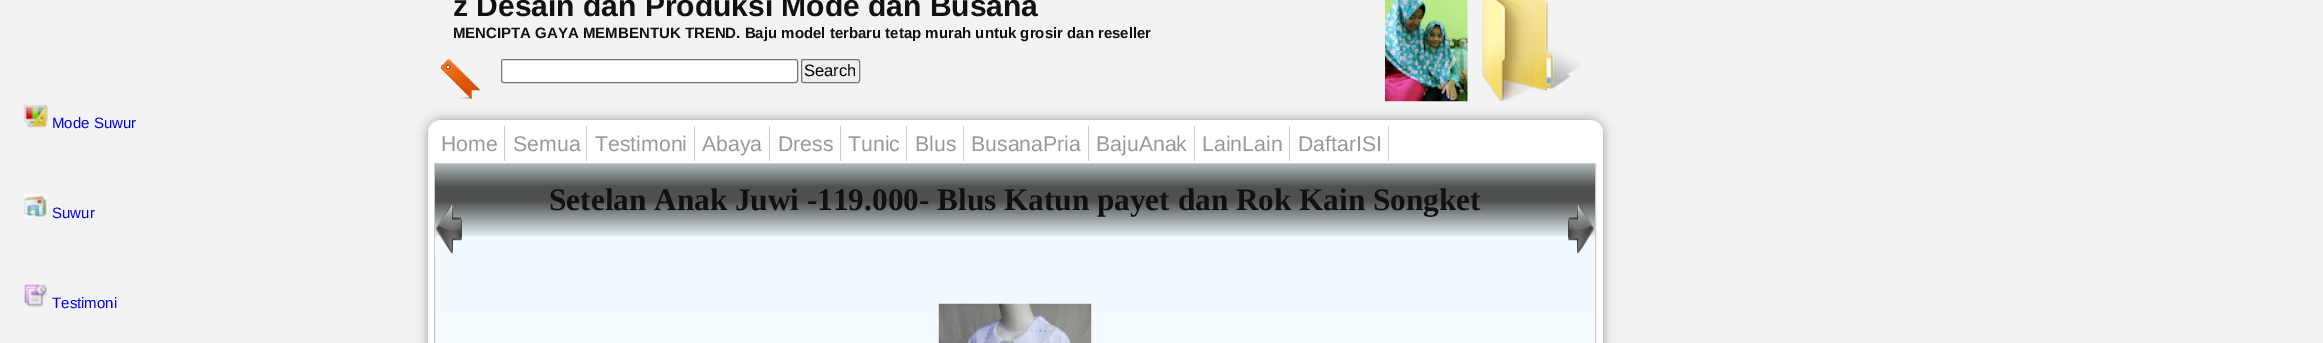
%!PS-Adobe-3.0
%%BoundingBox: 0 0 2323 343
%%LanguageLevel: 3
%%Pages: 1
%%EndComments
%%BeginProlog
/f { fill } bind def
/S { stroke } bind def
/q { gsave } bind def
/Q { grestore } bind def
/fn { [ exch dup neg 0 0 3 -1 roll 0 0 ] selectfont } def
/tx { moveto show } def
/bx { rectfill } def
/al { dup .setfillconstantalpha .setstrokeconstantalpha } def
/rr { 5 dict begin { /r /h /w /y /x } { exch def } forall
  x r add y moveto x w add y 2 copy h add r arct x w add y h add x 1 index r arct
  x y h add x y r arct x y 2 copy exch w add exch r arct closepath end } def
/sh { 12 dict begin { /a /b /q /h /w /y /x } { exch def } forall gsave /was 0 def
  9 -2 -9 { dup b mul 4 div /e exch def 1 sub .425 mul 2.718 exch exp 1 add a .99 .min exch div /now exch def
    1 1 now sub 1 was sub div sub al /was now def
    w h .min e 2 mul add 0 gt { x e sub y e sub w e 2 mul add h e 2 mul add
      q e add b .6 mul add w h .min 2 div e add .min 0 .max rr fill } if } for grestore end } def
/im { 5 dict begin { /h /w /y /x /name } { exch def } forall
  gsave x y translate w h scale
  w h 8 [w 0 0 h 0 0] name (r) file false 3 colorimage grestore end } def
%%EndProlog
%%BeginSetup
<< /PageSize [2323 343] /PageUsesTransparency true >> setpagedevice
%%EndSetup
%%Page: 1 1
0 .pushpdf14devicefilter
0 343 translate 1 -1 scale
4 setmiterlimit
0.953 setgray
0 0 2323 343 bx
(image0.raw) 23 104 25 24 im
/LiberationSans-Regular 15 fn
0 0 0.933 setrgbcolor
(Mode Suwur) 52 128 tx
(image1.raw) 23 194 25 24 im
(Suwur) 52 218 tx
(image2.raw) 24 284 23 24 im
(Testimoni) 52 308 tx
/LiberationSans-Bold 30 fn
0.067 setgray
(z Desain dan Produksi Mode dan Busana) 453 16 tx
/LiberationSans-Bold 15 fn
(MENCIPTA GAYA MEMBENTUK TREND. Baju model terbaru tetap murah untuk grosir dan reseller) 453 38 tx
(image3.raw) 440 59 40 41 im
1 setgray
501.5 59.5 296 23 2 rr q f Q
0.463 setgray
S
0.937 setgray
801.5 59.5 58 23 2 rr q f Q
0.463 setgray
S
/LiberationSans-Regular 16.5 fn
0 setgray
(Search) 804 76 tx
0.6 setgray
428 120 1175 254 13 6 1 sh
(image4.raw) 1385 0 83 102 im
(image5.raw) 1482 0 99 102 im
1 setgray
428 120 1175 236 13 rr f
0.8 setgray
504 126 1 35 bx
/LiberationSans-Regular 21.25 fn
0.6 setgray
(Home) 441 151 tx
0.8 setgray
586 126 1 35 bx
0.6 setgray
(Semua) 513 151 tx
0.8 setgray
694 126 1 35 bx
0.6 setgray
(Testimoni) 595 151 tx
0.8 setgray
769 126 1 35 bx
0.6 setgray
(Abaya) 702 151 tx
0.8 setgray
840 126 1 35 bx
0.6 setgray
(Dress) 778 151 tx
0.8 setgray
906 126 1 35 bx
0.6 setgray
(Tunic) 848 151 tx
0.8 setgray
963 126 1 35 bx
0.6 setgray
(Blus) 915 151 tx
0.8 setgray
1088 126 1 35 bx
0.6 setgray
(BusanaPria) 971 151 tx
0.8 setgray
1194 126 1 35 bx
0.6 setgray
(BajuAnak) 1096 151 tx
0.8 setgray
1289 126 1 35 bx
0.6 setgray
(LainLain) 1202 151 tx
0.8 setgray
1388 126 1 35 bx
0.6 setgray
(DaftarISI) 1298 151 tx
(image6.raw) 435 236 1160 107 im
0.8 setgray
434.5 163.5 1161 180 rectstroke
(image7.raw) 435 164 1160 73 im
/LiberationSerif-Bold 31.25 fn
0.067 setgray
(Setelan Anak Juwi -119.000- Blus Katun payet dan Rok Kain Songket) 549 210 tx
(image8.raw) 435 205 27 50 im
(image9.raw) 1568 205 27 50 im
(image10.raw) 938 303 154 40 im
.poppdf14devicefilter showpage
%%EOF
